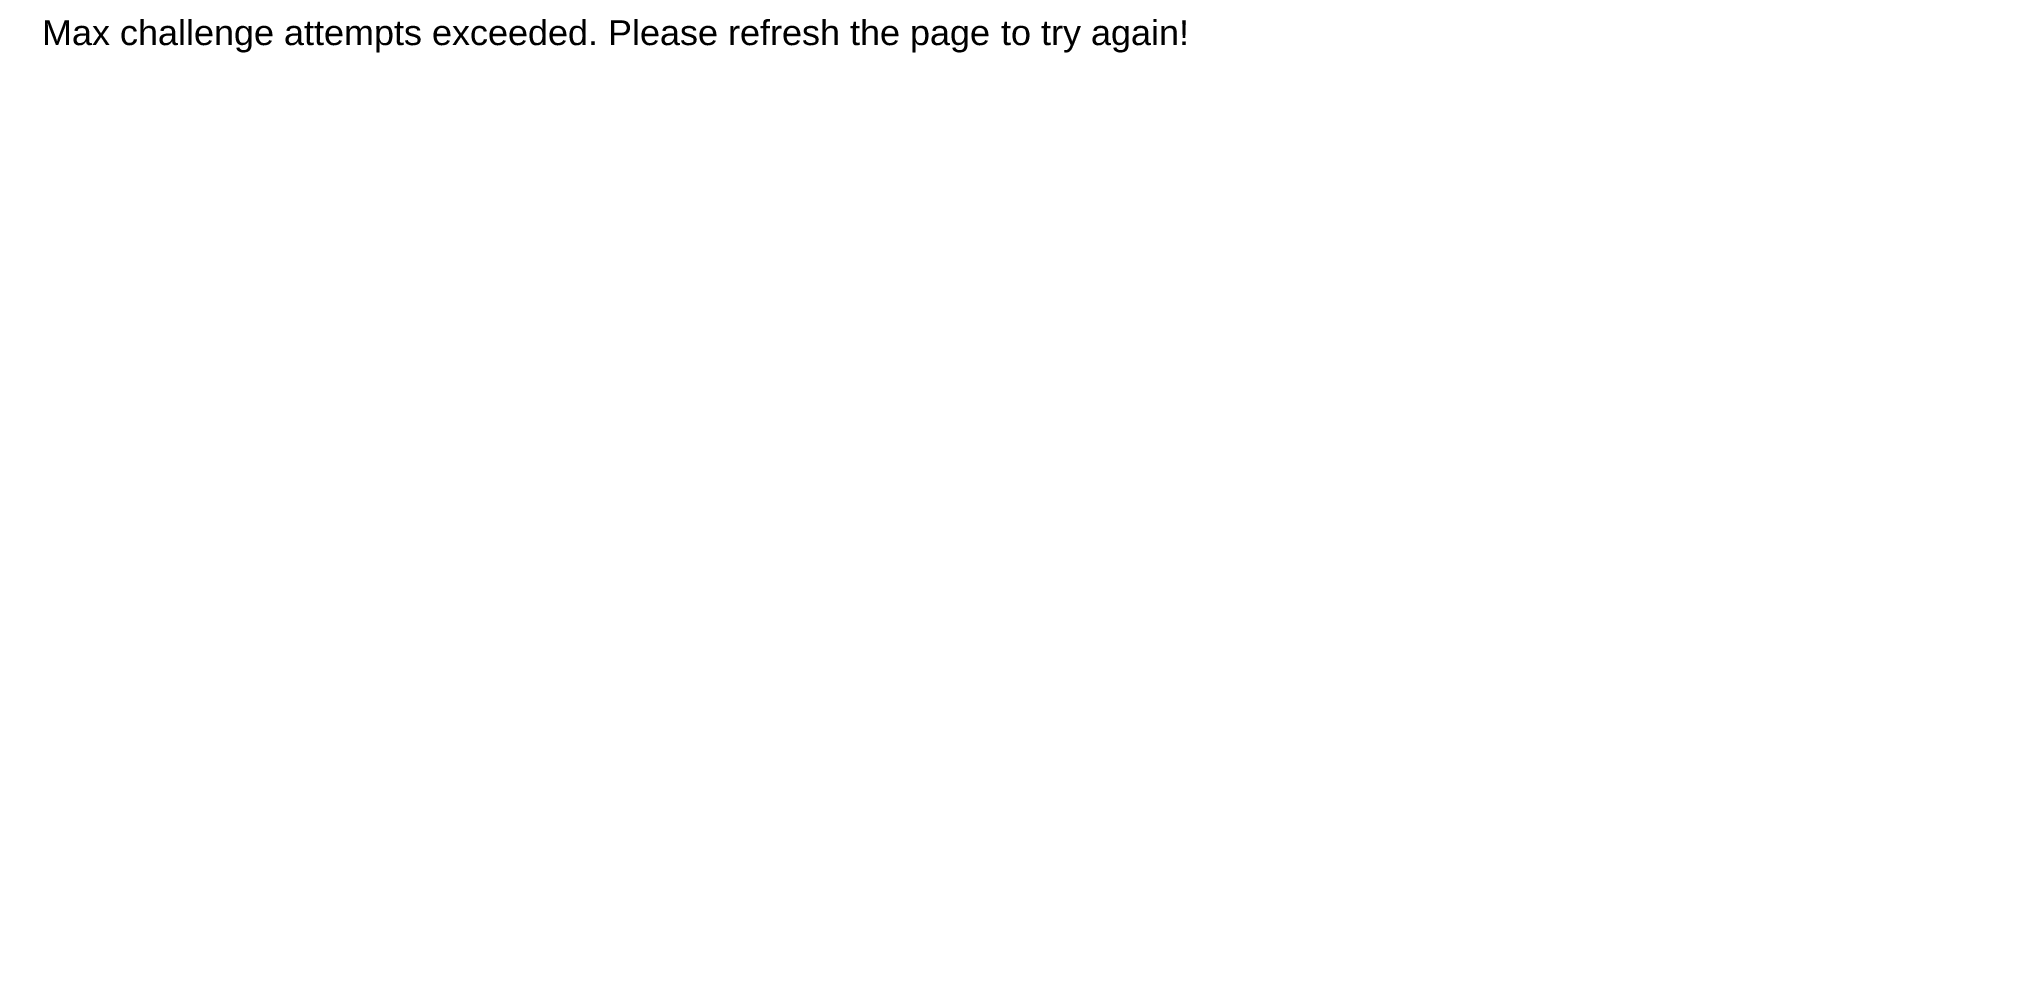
%!PS-Adobe-3.0
%%BoundingBox: 0 0 2044 1001
%%LanguageLevel: 3
%%Pages: 1
%%EndComments
%%BeginProlog
/fn { [ exch dup neg 0 0 3 -1 roll 0 0 ] selectfont } def
/tx { moveto show } def
/bx { rectfill } def
%%EndProlog
%%BeginSetup
<< /PageSize [2044 1001] >> setpagedevice
%%EndSetup
%%Page: 1 1
0 1001 translate 1 -1 scale
4 setmiterlimit
1 setgray
0 0 2044 1001 bx
/LiberationSans-Regular 36 fn
0 setgray
(Max challenge attempts exceeded. Please refresh the page to try again!) 42 45 tx
showpage
%%EOF
